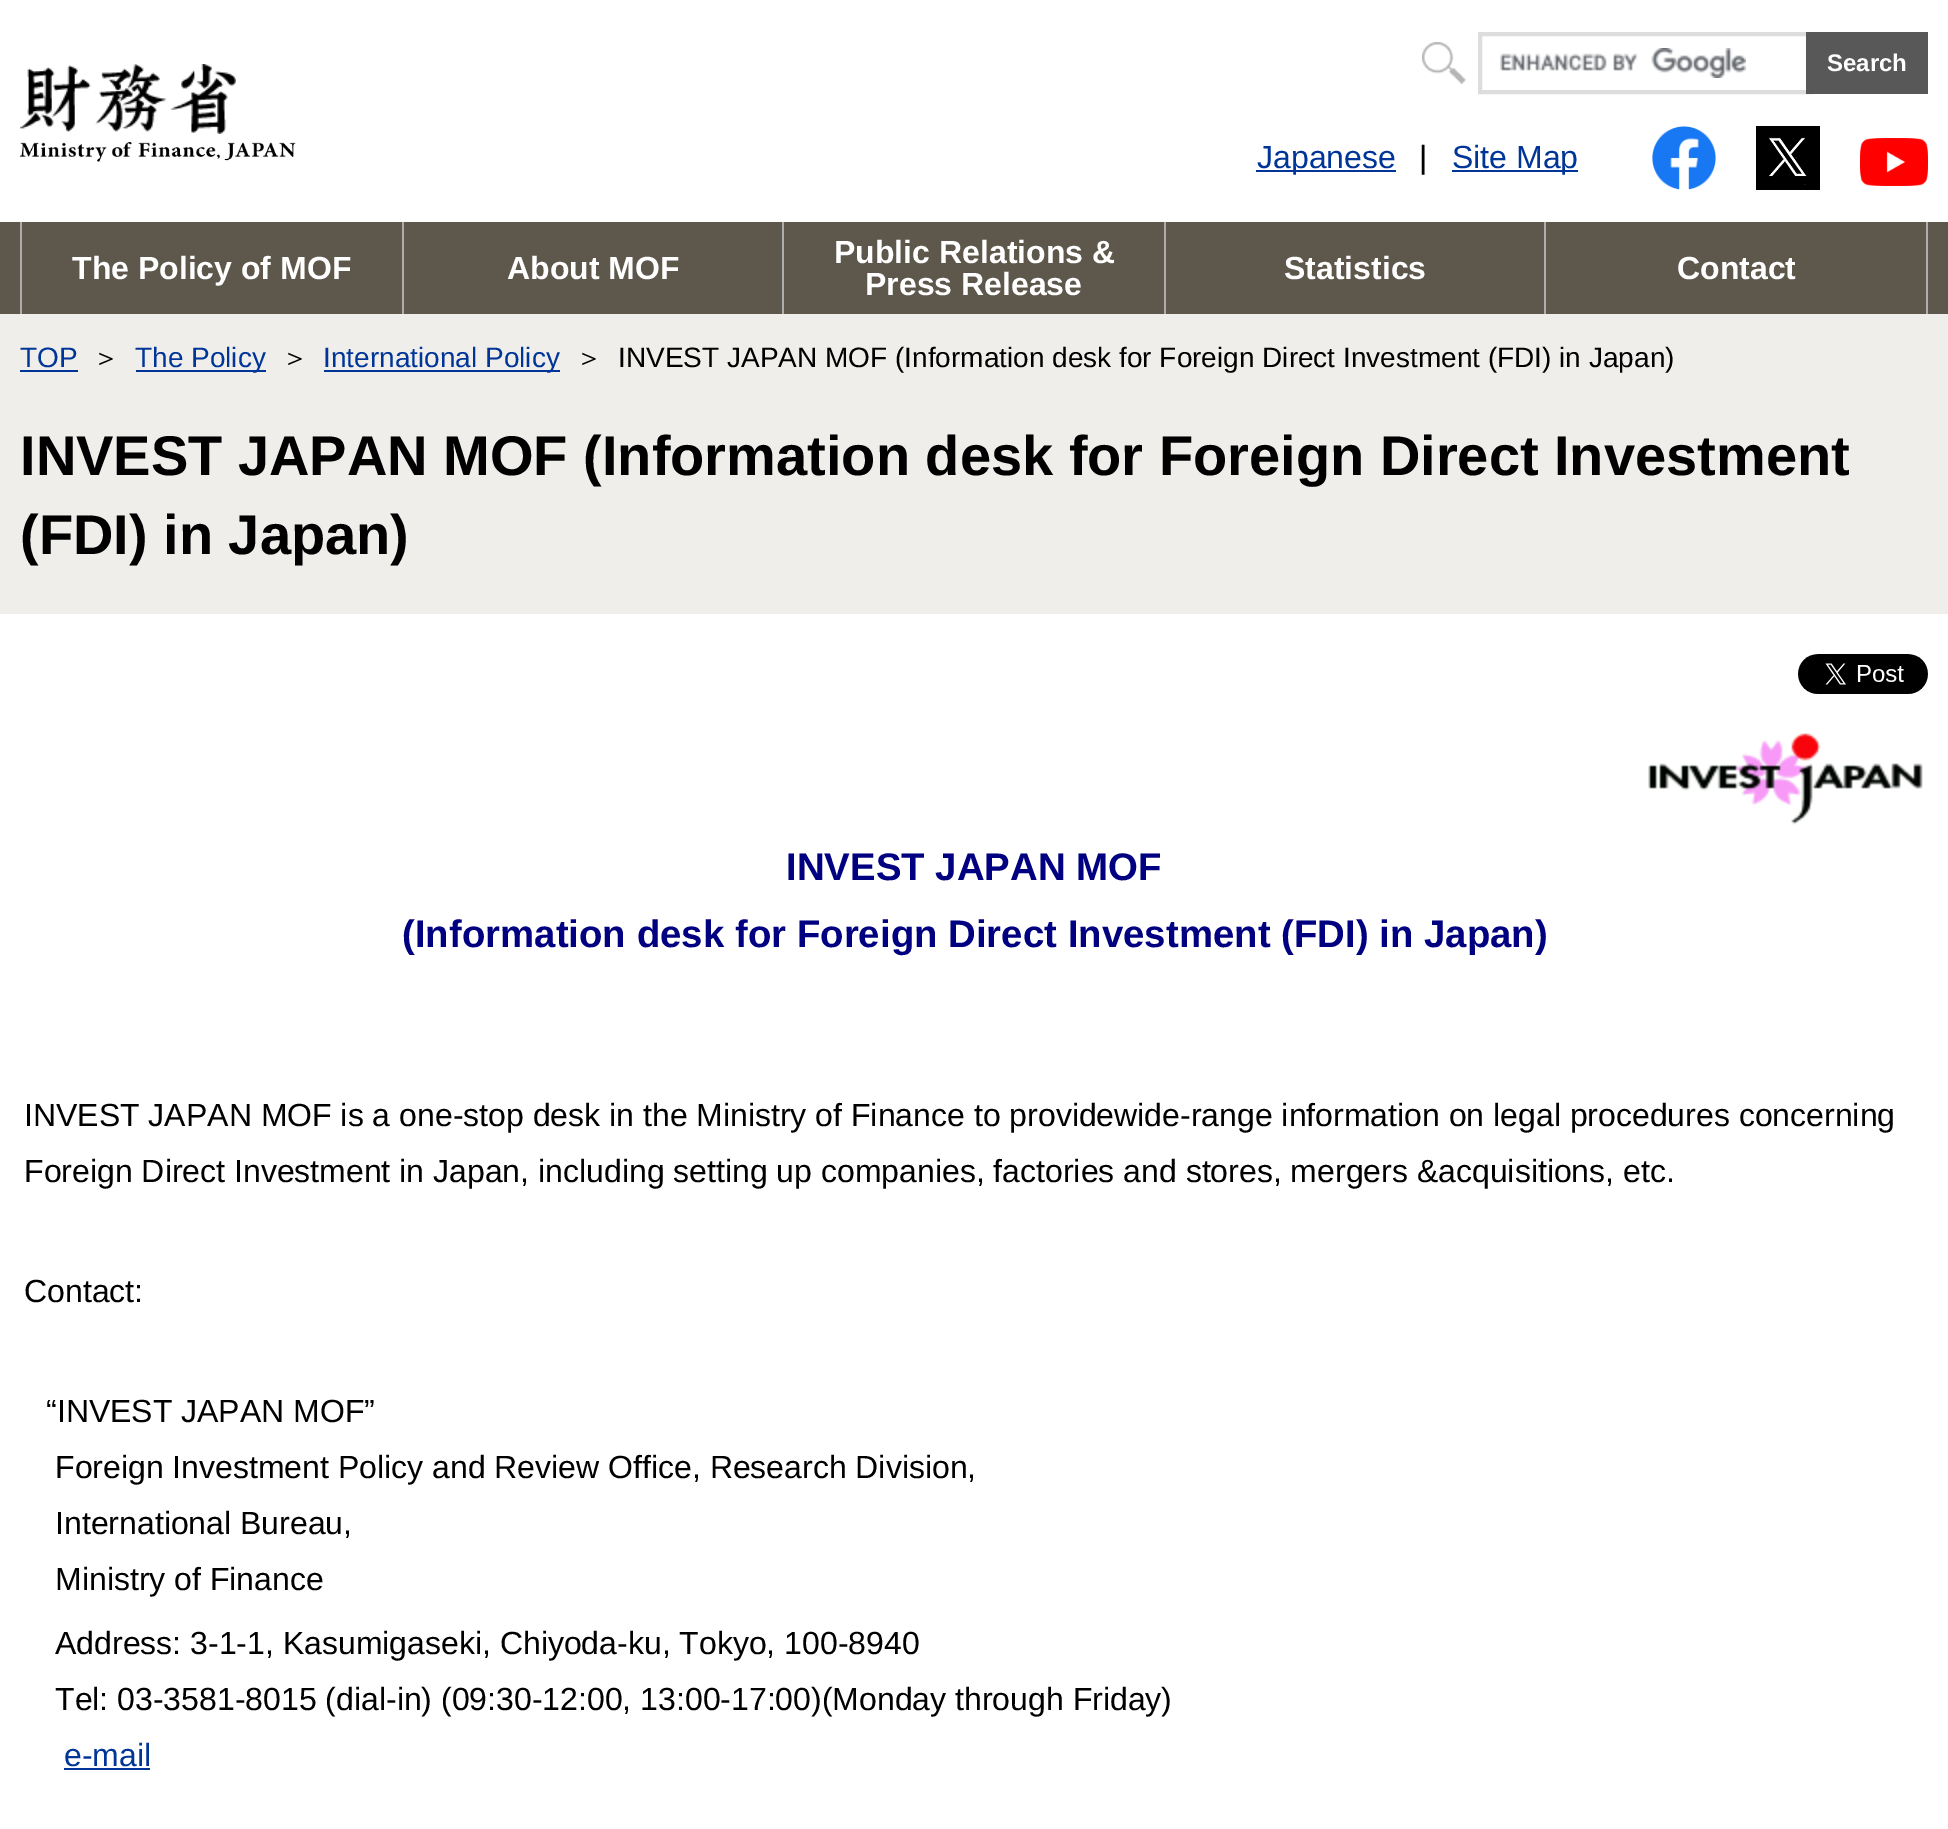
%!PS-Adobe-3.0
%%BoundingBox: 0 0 1948 1829
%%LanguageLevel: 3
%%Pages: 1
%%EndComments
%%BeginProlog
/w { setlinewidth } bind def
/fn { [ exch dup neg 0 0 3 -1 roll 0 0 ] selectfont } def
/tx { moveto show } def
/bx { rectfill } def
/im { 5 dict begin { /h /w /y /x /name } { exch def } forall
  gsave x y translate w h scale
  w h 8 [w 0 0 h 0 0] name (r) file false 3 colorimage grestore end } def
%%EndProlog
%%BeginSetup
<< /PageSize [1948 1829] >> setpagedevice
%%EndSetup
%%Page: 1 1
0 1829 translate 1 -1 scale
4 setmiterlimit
1 setgray
0 0 1948 1829 bx
(image0.raw) 20 64 216 70 im
(image1.raw) 20 142 276 20 im
0 0.208 0.596 setrgbcolor
1256 170 140 2 bx
/LiberationSans-Regular 32 fn
(Japanese) 1257 168 tx
0 setgray
(|) 1419 168 tx
0 0.208 0.596 setrgbcolor
1452 170 126 2 bx
(Site Map) 1452 168 tx
(image2.raw) 1652 126 64 64 im
(image3.raw) 1756 126 64 64 im
(image4.raw) 1860 138 68 48 im
(image5.raw) 1422 42 44 42 im
(image6.raw) 1500 48 246 30 im
0.867 setgray
4 w
1480 34 332 58 rectstroke
0.345 setgray
1806 32 122 62 bx
/LiberationSans-Bold 24 fn
1 setgray
(Search) 1827 71 tx
0.369 0.341 0.298 setrgbcolor
0 222 1948 92 bx
0.686 0.678 0.663 setrgbcolor
20 222 2 92 bx
/LiberationSans-Bold 32 fn
1 setgray
(The Policy of MOF) 72 279 tx
0.686 0.678 0.663 setrgbcolor
402 222 2 92 bx
1 setgray
(About MOF) 507 279 tx
0.686 0.678 0.663 setrgbcolor
782 222 2 92 bx
1 setgray
(Public Relations &) 834 263 tx
(Press Release) 865 295 tx
0.686 0.678 0.663 setrgbcolor
1164 222 2 92 bx
1 setgray
(Statistics) 1284 279 tx
0.686 0.678 0.663 setrgbcolor
1926 222 2 92 bx
1544 222 2 92 bx
1 setgray
(Contact) 1677 279 tx
0.937 0.933 0.922 setrgbcolor
0 314 1948 300 bx
/LiberationSans-Regular 28 fn
0 0.208 0.596 setrgbcolor
(TOP) 20 367 tx
20 370 58 2 bx
/WenQuanYiZenHei-Medium 28 fn
0 setgray
(＞) 92 367 tx
0 0.208 0.596 setrgbcolor
136 370 130 2 bx
/LiberationSans-Regular 28 fn
(The Policy) 135 367 tx
/WenQuanYiZenHei-Medium 28 fn
0 setgray
(＞) 281 367 tx
0 0.208 0.596 setrgbcolor
324 370 236 2 bx
/LiberationSans-Regular 28 fn
(International Policy) 323 367 tx
/WenQuanYiZenHei-Medium 28 fn
0 setgray
(＞) 575 367 tx
/LiberationSans-Regular 28 fn
(INVEST JAPAN MOF \(Information desk for Foreign Direct Investment \(FDI\) in Japan\)) 618 367 tx
/LiberationSans-Bold 56 fn
(INVEST JAPAN MOF \(Information desk for Foreign Direct Investment) 20 475 tx
(\(FDI\) in Japan\)) 20 554 tx
(image7.raw) 1798 654 130 40 im
(image8.raw) 1648 733 275 92 im
/LiberationSans-Bold 38.4 fn
0 0 0.502 setrgbcolor
(INVEST JAPAN MOF) 786 880 tx
(\(Information desk for Foreign Direct Investment \(FDI\) in Japan\)) 402 947 tx
/LiberationSans-Regular 32 fn
0 setgray
(INVEST JAPAN MOF is a one-stop desk in the Ministry of Finance to providewide-range information on legal procedures concerning) 24 1126 tx
(Foreign Direct Investment in Japan, including setting up companies, factories and stores, mergers &acquisitions, etc.) 24 1182 tx
(Contact:) 24 1302 tx
(“INVEST JAPAN MOF”) 46 1422 tx
(Foreign Investment Policy and Review Office, Research Division,) 55 1478 tx
(International Bureau,) 55 1534 tx
(Ministry of Finance) 55 1590 tx
(Address: 3-1-1, Kasumigaseki, Chiyoda-ku, Tokyo, 100-8940) 55 1654 tx
(Tel: 03-3581-8015 \(dial-in\) \(09:30-12:00, 13:00-17:00\)\(Monday through Friday\)) 55 1710 tx
0 0.208 0.596 setrgbcolor
(e-mail) 64 1766 tx
64 1768 86 2 bx
showpage
%%EOF
